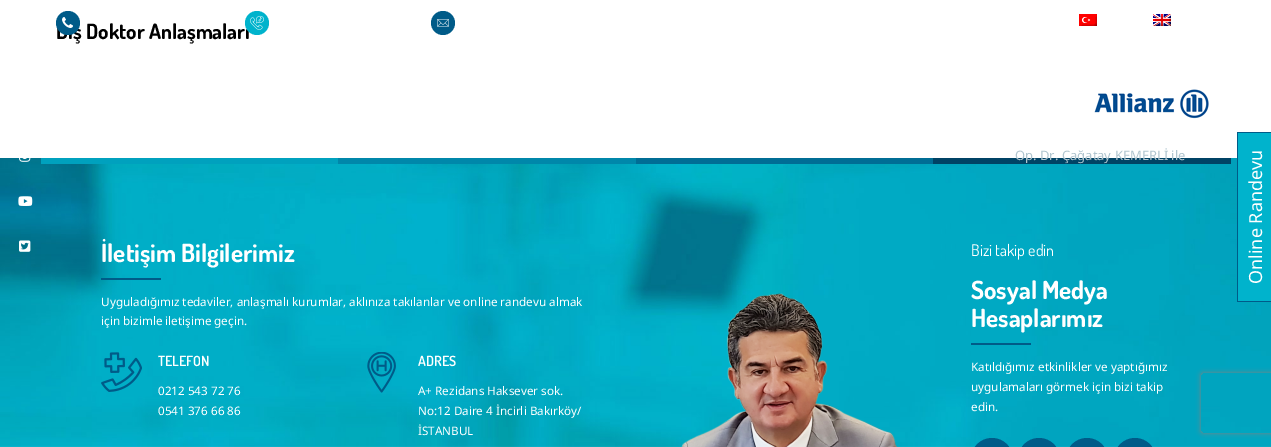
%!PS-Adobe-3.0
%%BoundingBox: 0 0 1271 447
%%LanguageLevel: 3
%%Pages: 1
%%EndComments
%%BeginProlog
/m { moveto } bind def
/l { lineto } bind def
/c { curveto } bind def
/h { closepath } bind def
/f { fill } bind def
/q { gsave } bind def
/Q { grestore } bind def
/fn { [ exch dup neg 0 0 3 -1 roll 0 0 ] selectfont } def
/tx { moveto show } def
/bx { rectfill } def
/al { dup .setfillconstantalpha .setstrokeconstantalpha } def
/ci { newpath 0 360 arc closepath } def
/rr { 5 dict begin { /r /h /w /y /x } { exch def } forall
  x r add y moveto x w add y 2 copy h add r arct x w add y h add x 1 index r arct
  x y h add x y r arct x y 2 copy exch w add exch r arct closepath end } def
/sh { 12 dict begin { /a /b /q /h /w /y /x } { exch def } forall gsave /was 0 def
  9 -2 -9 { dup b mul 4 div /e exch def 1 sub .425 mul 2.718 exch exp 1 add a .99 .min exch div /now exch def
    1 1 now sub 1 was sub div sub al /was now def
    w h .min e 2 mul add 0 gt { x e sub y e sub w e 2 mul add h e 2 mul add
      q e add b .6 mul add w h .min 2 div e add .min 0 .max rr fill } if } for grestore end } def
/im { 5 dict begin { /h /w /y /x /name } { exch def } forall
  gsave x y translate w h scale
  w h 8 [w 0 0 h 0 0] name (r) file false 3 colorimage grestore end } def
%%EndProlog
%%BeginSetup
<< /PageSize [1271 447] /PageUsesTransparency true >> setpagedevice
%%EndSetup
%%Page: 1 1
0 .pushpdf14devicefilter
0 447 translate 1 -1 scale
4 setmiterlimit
1 setgray
0 0 1271 447 bx
(image4.raw) 0 158 1271 289 im
(image0.raw) 19 158 12 4 im
(image1.raw) 18 196 15 10 im
(image2.raw) 19 240 12 12 im
/Dosis-Bold 21 fn
0 setgray
(Dış Doktor Anlaşmaları) 56 39 tx
(image3.raw) 1094 89 115 30 im
0 0.631 0.745 setrgbcolor
41 158 297 6 bx
0 0.529 0.667 setrgbcolor
338 158 298 6 bx
0 0.427 0.584 setrgbcolor
636 158 297 6 bx
0 0.263 0.396 setrgbcolor
933 158 298 6 bx
/Dosis-Bold 25 fn
1 setgray
(İletişim Bilgilerimiz) 101 262 tx
0 0.357 0.533 setrgbcolor
101 278 60 2 bx
/NotoSans-Regular 11.7 fn
1 setgray
(Uyguladığımız tedaviler, anlaşmalı kurumlar, aklınıza takılanlar ve online randevu almak) 101 306 tx
(için bizimle iletişime geçin.) 101 325 tx
(image5.raw) 101 352 41 40 im
/Dosis-SemiBold 14 fn
(TELEFON) 158 366 tx
/NotoSans-Regular 11.7 fn
(0212 543 72 76) 158 395 tx
(0541 376 66 86) 158 415 tx
(image6.raw) 367 352 29 41 im
/Dosis-SemiBold 14 fn
(ADRES) 418 366 tx
/NotoSans-Regular 11.7 fn
(A+ Rezidans Haksever sok.) 418 395 tx
(No:12 Daire 4 İncirli Bakırköy/) 418 415 tx
(İSTANBUL) 418 435 tx
(image7.raw) 681 293 217 154 im
/Dosis-Regular 16 fn
(Bizi takip edin) 971 256 tx
/Dosis-Bold 25 fn
(Sosyal Medya) 971 299 tx
(Hesaplarımız) 971 327 tx
0 0.357 0.533 setrgbcolor
971 343 60 2 bx
/NotoSans-Regular 11.7 fn
1 setgray
(Katıldığımız etkinlikler ve yaptığımız) 971 371 tx
(uygulamaları görmek için bizi takip) 971 391 tx
(edin.) 971 411 tx
0 0.357 0.533 setrgbcolor
971 438 42 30 21 rr f
1018 438 42 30 21 rr f
1066 438 42 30 21 rr f
1114 438 42 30 21 rr f
68 23 12 ci f
(image8.raw) 62 17 11 11 im
0 0.702 0.8 setrgbcolor
257 23 12 ci f
(image9.raw) 250 15 14 15 im
0 0.357 0.533 setrgbcolor
443 23 12 ci f
(image10.raw) 437 19 12 8 im
(image11.raw) 1079 14 18 12 im
(image12.raw) 1153 14 18 12 im
/NotoSans-Regular 13 fn
0.69 0.773 0.812 setrgbcolor
(Op. Dr. Çağatay KEMERLİ ile) 1015 160 tx
0 0.702 0.8 setrgbcolor
1238 133 33 168 bx
0 0.357 0.533 setrgbcolor
1237 132 1 170 bx
1237 132 34 1 bx
1237 301 34 1 bx
/NotoSans-Regular 18 fn
1 setgray
q 1262 284 translate -90 rotate 0 0 m (Online Randevu) show Q
q
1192 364 m 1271 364 l 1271 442 l 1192 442 l h 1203 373 m 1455 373 l 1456 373 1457 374 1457 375 c 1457 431 l 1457 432 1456 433 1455 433 c 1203 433 l 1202 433 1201 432 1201 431 c 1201 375 l 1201 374 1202 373 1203 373 c h eoclip newpath
0.502 setgray
1201 373 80 60 2 2.5 1 sh
Q
.poppdf14devicefilter showpage
%%EOF
